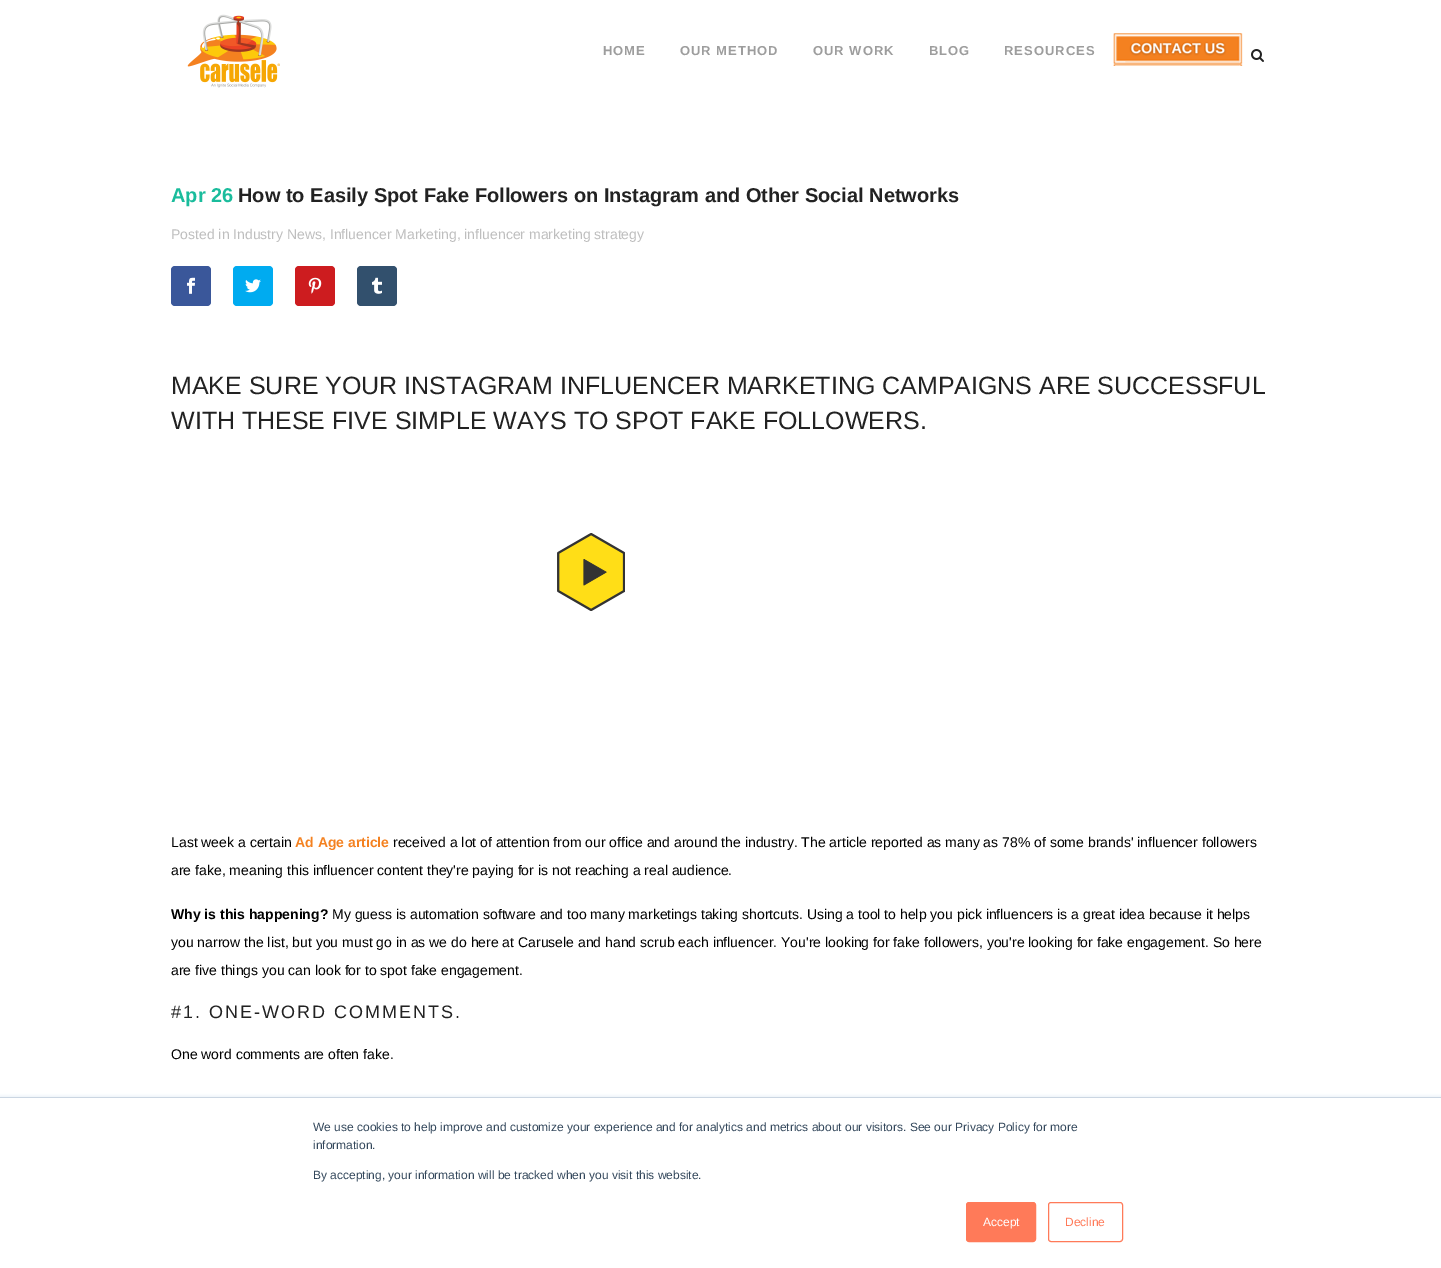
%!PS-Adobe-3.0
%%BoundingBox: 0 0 1441 1268
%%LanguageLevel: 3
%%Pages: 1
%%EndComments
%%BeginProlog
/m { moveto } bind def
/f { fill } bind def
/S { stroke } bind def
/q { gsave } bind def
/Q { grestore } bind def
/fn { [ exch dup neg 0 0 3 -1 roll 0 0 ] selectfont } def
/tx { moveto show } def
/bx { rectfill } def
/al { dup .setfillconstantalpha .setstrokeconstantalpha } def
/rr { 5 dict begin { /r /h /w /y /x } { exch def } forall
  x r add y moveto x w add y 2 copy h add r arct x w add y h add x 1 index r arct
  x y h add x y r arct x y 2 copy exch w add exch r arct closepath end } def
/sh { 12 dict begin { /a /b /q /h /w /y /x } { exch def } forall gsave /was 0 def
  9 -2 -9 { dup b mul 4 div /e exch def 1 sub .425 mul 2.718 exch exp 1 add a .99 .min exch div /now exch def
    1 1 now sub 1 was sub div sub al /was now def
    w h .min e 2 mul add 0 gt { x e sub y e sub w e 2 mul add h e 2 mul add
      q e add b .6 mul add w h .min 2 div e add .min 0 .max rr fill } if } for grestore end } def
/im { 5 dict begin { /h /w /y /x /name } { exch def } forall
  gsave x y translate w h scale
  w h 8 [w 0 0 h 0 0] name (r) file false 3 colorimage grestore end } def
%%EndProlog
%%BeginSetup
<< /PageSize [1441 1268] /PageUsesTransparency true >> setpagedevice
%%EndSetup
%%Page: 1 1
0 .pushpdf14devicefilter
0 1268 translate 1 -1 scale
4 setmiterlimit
1 setgray
0 0 1441 1268 bx
(image0.raw) 187 14 93 74 im
/LiberationSans-Bold 13 fn
0.616 setgray
603 55 m 1 0 (HOME) ashow
680 55 m 1 0 (OUR METHOD) ashow
813 55 m 1 0 (OUR WORK) ashow
929 55 m 1 0 (BLOG) ashow
1004 55 m 1 0 (RESOURCES) ashow
(image1.raw) 1113 33 130 33 im
(image2.raw) 1251 49 13 13 im
/LiberationSans-Bold 20 fn
0.102 0.737 0.612 setrgbcolor
(Apr 26) 171 202 tx
0.133 setgray
(How to Easily Spot Fake Followers on Instagram and Other Social Networks) 238 202 tx
/LiberationSans-Regular 14 fn
0.745 setgray
(Posted in Industry News, Influencer Marketing, influencer marketing strategy) 171 239 tx
0.227 0.341 0.604 setrgbcolor
171 266 40 40 4 rr f
(image3.raw) 187 277 8 17 im
0 0.671 0.941 setrgbcolor
233 266 40 40 4 rr f
(image4.raw) 245 279 16 14 im
0.804 0.11 0.122 setrgbcolor
295 266 40 40 4 rr f
(image5.raw) 308 277 14 17 im
0.196 0.314 0.427 setrgbcolor
357 266 40 40 4 rr f
(image6.raw) 372 277 10 17 im
/LiberationSans-Regular 25 fn
0.133 setgray
(MAKE SURE YOUR INSTAGRAM INFLUENCER MARKETING CAMPAIGNS ARE SUCCESSFUL) 171 394 tx
(WITH THESE FIVE SIMPLE WAYS TO SPOT FAKE FOLLOWERS.) 171 429 tx
(image7.raw) 557 533 68 78 im
/LiberationSans-Regular 14 fn
0 setgray
(Last week a certain) 171 847 tx
/LiberationSans-Bold 14 fn
0.957 0.506 0.125 setrgbcolor
(Ad Age article) 295 847 tx
/LiberationSans-Regular 14 fn
0 setgray
(received a lot of attention from our office and around the industry. The article reported as many as 78% of some brands' influencer followers) 393 847 tx
(are fake, meaning this influencer content they're paying for is not reaching a real audience.) 171 875 tx
/LiberationSans-Bold 14 fn
(Why is this happening?) 171 919 tx
/LiberationSans-Regular 14 fn
(My guess is automation software and too many marketings taking shortcuts. Using a tool to help you pick influencers is a great idea because it helps) 332 919 tx
(you narrow the list, but you must go in as we do here at Carusele and hand scrub each influencer. You're looking for fake followers, you're looking for fake engagement. So here) 171 947 tx
(are five things you can look for to spot fake engagement.) 171 975 tx
/LiberationSans-Regular 18 fn
0.133 setgray
171 1018 m 2 0 (#1. ONE-WORD COMMENTS.) ashow
/LiberationSans-Regular 14 fn
0 setgray
(One word comments are often fake.) 171 1059 tx
0.918 0.941 0.965 setrgbcolor
0 1096 1441 171 0 1.5 1 sh
1 setgray
0 1098 1441 170 bx
0.796 0.839 0.886 setrgbcolor
0 1097 1441 1 bx
/LiberationSans-Regular 12 fn
0.2 0.278 0.357 setrgbcolor
(We use cookies to help improve and customize your experience and for analytics and metrics about our visitors. See our Privacy Policy for more) 313 1131 tx
(information.) 313 1149 tx
(By accepting, your information will be tracked when you visit this website.) 313 1179 tx
1 0.478 0.349 setrgbcolor
966.5 1202.5 69 39 2.5 rr q f Q
S
1 setgray
(Accept) 983 1226 tx
1 0.478 0.349 setrgbcolor
1048.5 1202.5 74 39 2.5 rr S
(Decline) 1065 1226 tx
.poppdf14devicefilter showpage
%%EOF
